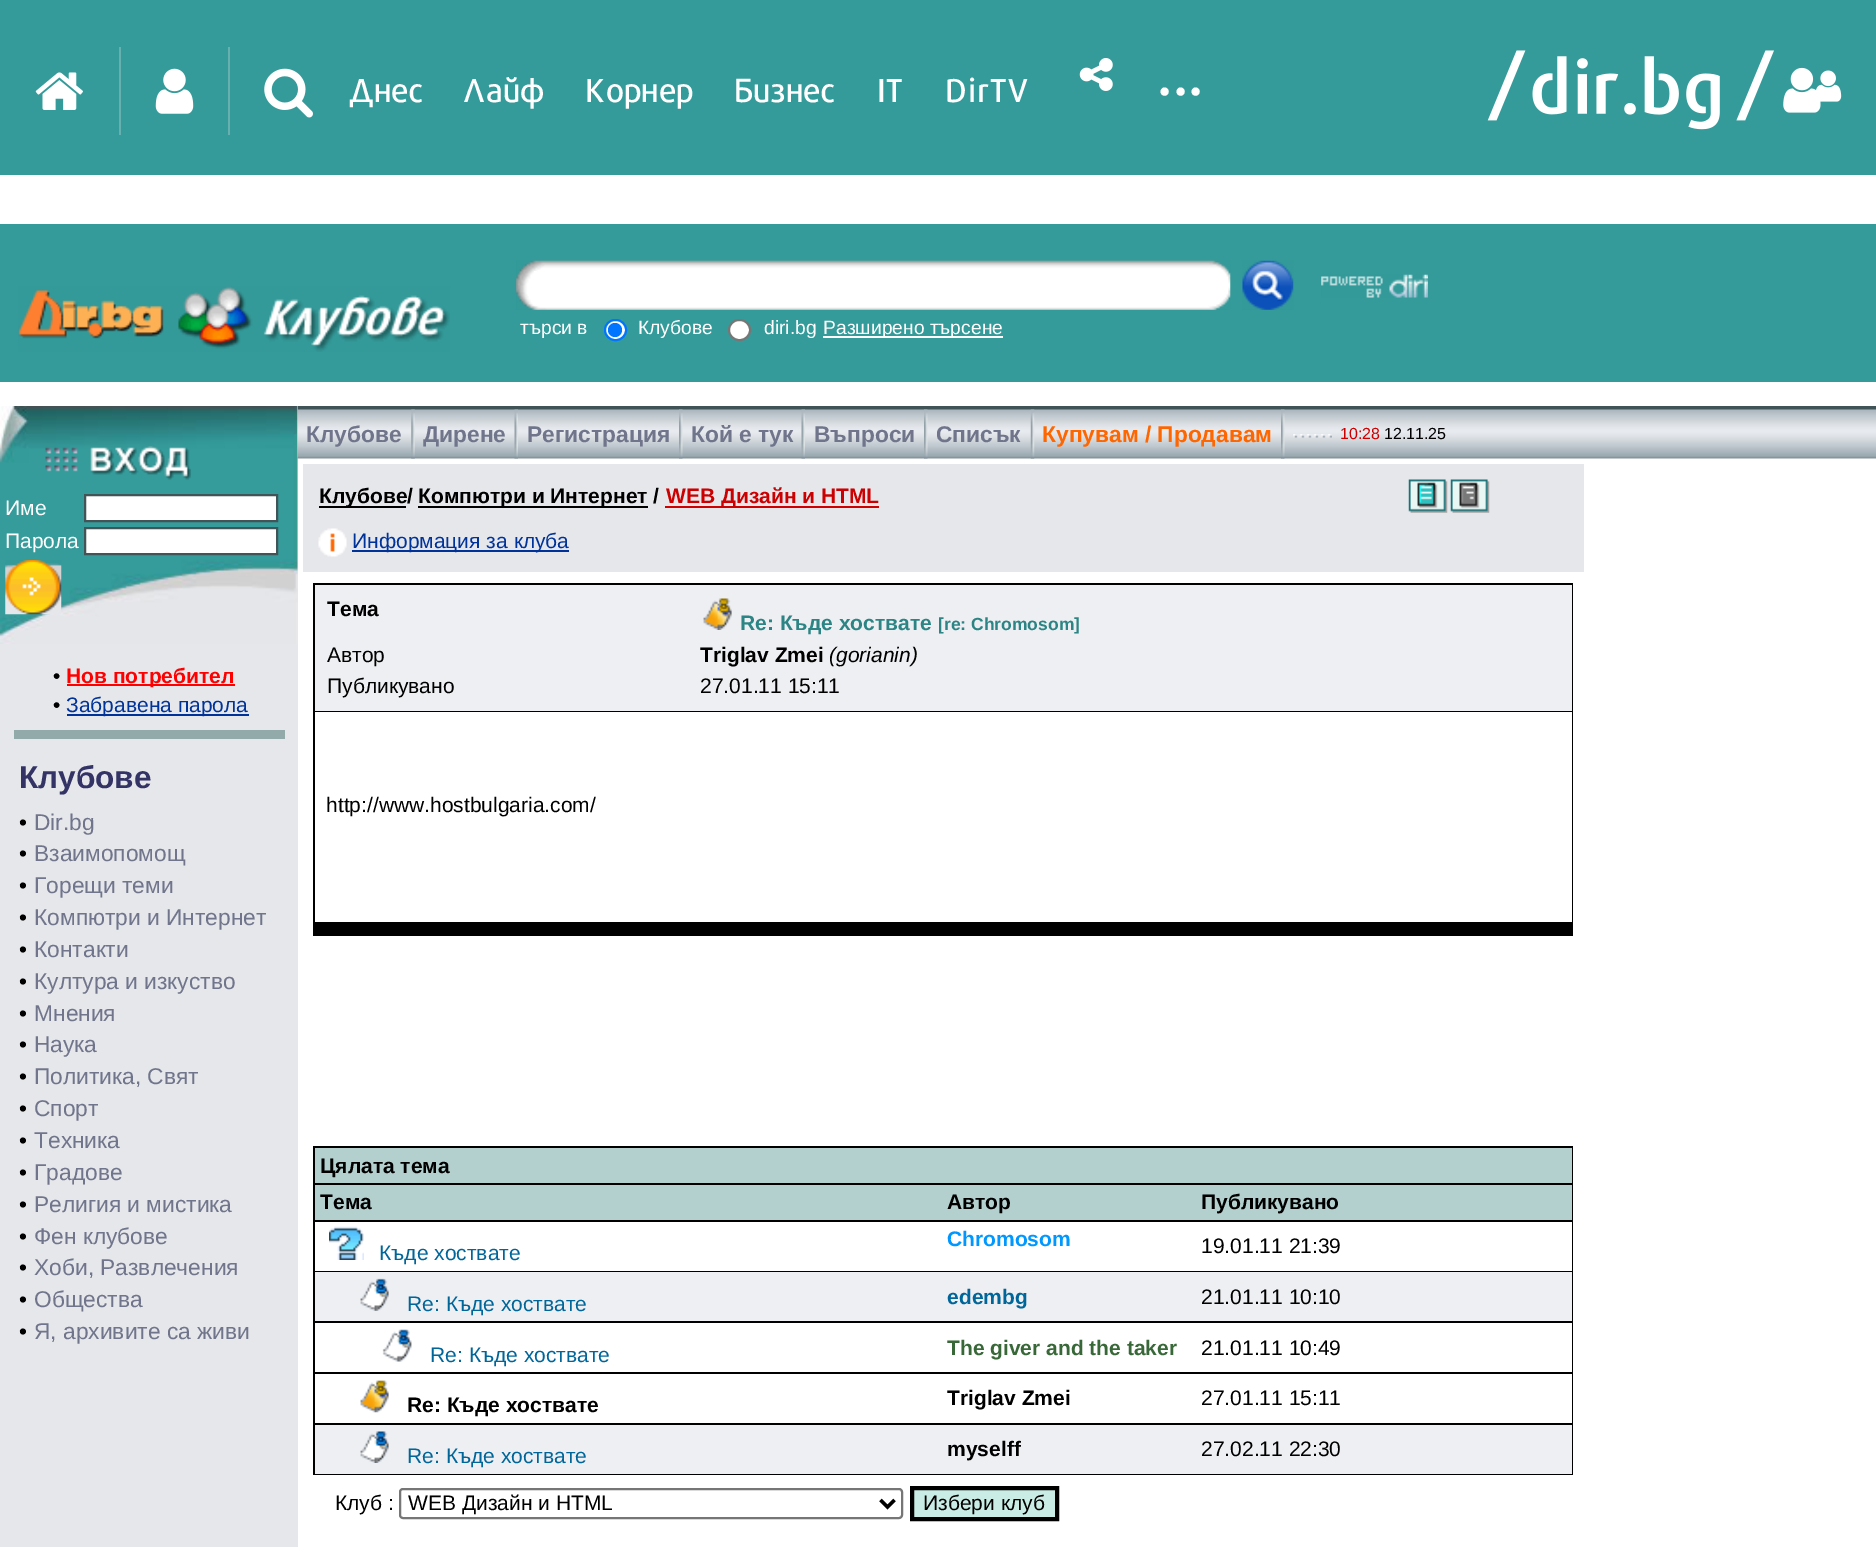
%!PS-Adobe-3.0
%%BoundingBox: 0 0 1876 1555
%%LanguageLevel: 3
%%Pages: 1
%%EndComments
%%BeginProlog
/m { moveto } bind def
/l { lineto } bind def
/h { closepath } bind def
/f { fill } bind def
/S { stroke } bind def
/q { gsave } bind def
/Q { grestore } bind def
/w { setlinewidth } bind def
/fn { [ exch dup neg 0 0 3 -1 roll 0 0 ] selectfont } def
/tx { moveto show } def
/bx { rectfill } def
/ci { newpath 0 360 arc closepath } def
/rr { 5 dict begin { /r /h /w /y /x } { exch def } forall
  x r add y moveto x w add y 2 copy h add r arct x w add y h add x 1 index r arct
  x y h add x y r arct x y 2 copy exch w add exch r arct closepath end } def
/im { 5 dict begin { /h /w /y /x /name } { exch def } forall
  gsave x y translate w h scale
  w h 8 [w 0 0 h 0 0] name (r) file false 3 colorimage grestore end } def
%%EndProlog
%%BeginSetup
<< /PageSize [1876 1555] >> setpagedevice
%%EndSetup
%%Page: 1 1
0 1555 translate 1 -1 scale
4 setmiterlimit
1 setgray
0 0 1876 1555 bx
0.204 0.608 0.604 setrgbcolor
0 0 1876 175 bx
(image0.raw) 35 72 48 38 im
0.408 0.69 0.69 setrgbcolor
119 47 2 88 bx
(image1.raw) 155 68 39 46 im
228 47 2 88 bx
(image2.raw) 264 68 49 50 im
/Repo-Medium 33 fn
1 setgray
(Днес) 349 102 tx
(Лайф) 464 102 tx
(Корнер) 585 102 tx
(Бизнес) 735 102 tx
(IT) 877 102 tx
(DirTV) 945 102 tx
(image3.raw) 1079 58 34 33 im
/Repo-Medium 61 fn
(...) 1157 95 tx
(image4.raw) 1487 50 287 80 im
(image5.raw) 1783 67 59 46 im
0.204 0.608 0.604 setrgbcolor
0 224 1876 158 bx
(image6.raw) 18 286 432 66 im
(image7.raw) 516 260 715 50 im
1 setgray
534 271 3 1 bx
(image8.raw) 1242 260 52 50 im
(image9.raw) 1321 274 107 24 im
/LiberationSans-Regular 19.25 fn
(търси в) 520 334 tx
605 320 21 20 10 rr q f Q
0 0.459 1 setrgbcolor
2 w
S
615 330 7 ci f
1 setgray
(Клубове) 638 334 tx
729 320 21 20 10 rr q f Q
0.463 setgray
S
1 setgray
(diri.bg) 764 334 tx
823 336 180 2 bx
(Разширено търсене) 823 334 tx
0.902 0.906 0.922 setrgbcolor
0 406 298 1141 bx
(image10.raw) 0 406 298 238 im
(image11.raw) 45 446 146 34 im
/LiberationSans-Regular 21 fn
1 setgray
(Име) 5 515 tx
85 495 m 277 495 l 277 521 l 85 521 l h q f Q
0.255 0.333 0.345 setrgbcolor
S
1 setgray
(Парола) 5 548 tx
85 528 m 277 528 l 277 554 l 85 554 l h q f Q
0.255 0.333 0.345 setrgbcolor
S
(image12.raw) 5 560 57 55 im
0 setgray
(•) 53 683 tx
1 0 0 setrgbcolor
67 684 168 2 bx
/LiberationSans-Bold 21 fn
(Нов потребител) 66 683 tx
/LiberationSans-Regular 21 fn
0 setgray
(•) 53 712 tx
0 0.2 0.6 setrgbcolor
67 714 182 2 bx
(Забравена парола) 66 712 tx
0.576 0.667 0.667 setrgbcolor
14 730 271 9 bx
/LiberationSans-Bold 31.5 fn
0.2 0.2 0.4 setrgbcolor
(Клубове) 19 788 tx
/LiberationSans-Regular 22.75 fn
0 setgray
(•) 19 830 tx
0.439 0.459 0.545 setrgbcolor
(Dir.bg) 34 830 tx
0 setgray
(•) 19 861 tx
0.439 0.459 0.545 setrgbcolor
(Взаимопомощ) 34 861 tx
0 setgray
(•) 19 893 tx
0.439 0.459 0.545 setrgbcolor
(Горещи теми) 34 893 tx
0 setgray
(•) 19 925 tx
0.439 0.459 0.545 setrgbcolor
(Компютри и Интернет) 34 925 tx
0 setgray
(•) 19 957 tx
0.439 0.459 0.545 setrgbcolor
(Контакти) 34 957 tx
0 setgray
(•) 19 989 tx
0.439 0.459 0.545 setrgbcolor
(Култура и изкуство) 34 989 tx
0 setgray
(•) 19 1021 tx
0.439 0.459 0.545 setrgbcolor
(Мнения) 34 1021 tx
0 setgray
(•) 19 1052 tx
0.439 0.459 0.545 setrgbcolor
(Наука) 34 1052 tx
0 setgray
(•) 19 1084 tx
0.439 0.459 0.545 setrgbcolor
(Политика, Свят) 34 1084 tx
0 setgray
(•) 19 1116 tx
0.439 0.459 0.545 setrgbcolor
(Спорт) 34 1116 tx
0 setgray
(•) 19 1148 tx
0.439 0.459 0.545 setrgbcolor
(Техника) 34 1148 tx
0 setgray
(•) 19 1180 tx
0.439 0.459 0.545 setrgbcolor
(Градове) 34 1180 tx
0 setgray
(•) 19 1212 tx
0.439 0.459 0.545 setrgbcolor
(Религия и мистика) 34 1212 tx
0 setgray
(•) 19 1244 tx
0.439 0.459 0.545 setrgbcolor
(Фен клубове) 34 1244 tx
0 setgray
(•) 19 1275 tx
0.439 0.459 0.545 setrgbcolor
(Хоби, Развлечения) 34 1275 tx
0 setgray
(•) 19 1307 tx
0.439 0.459 0.545 setrgbcolor
(Общества) 34 1307 tx
0 setgray
(•) 19 1339 tx
0.439 0.459 0.545 setrgbcolor
(Я, архивите са живи) 34 1339 tx
0.251 0.329 0.341 setrgbcolor
298 406 1578 4 bx
(image13.raw) 297 409 1579 50 im
/LiberationSans-Bold 22.75 fn
0.439 0.459 0.545 setrgbcolor
(Клубове) 306 442 tx
(image14.raw) 411 409 4 50 im
(Дирене) 423 442 tx
(image15.raw) 514 409 4 50 im
(Регистрация) 527 442 tx
(image16.raw) 679 409 4 50 im
(Кой е тук) 691 442 tx
(image15.raw) 801 409 4 50 im
(Въпроси) 814 442 tx
(image16.raw) 924 409 4 50 im
(Списък) 936 442 tx
(image17.raw) 1030 409 5 50 im
1 0.4 0 setrgbcolor
(Купувам / Продавам) 1042 442 tx
(image16.raw) 1281 409 4 50 im
(image18.raw) 1293 434 39 4 im
/LiberationSans-Regular 16 fn
0.8 0 0 setrgbcolor
(10:28) 1340 439 tx
0 setgray
(12.11.25) 1384 439 tx
0.902 0.906 0.922 setrgbcolor
303 464 1281 108 bx
0 setgray
319 506 87 2 bx
/LiberationSans-Bold 21 fn
(Клубове/) 319 503 tx
418 506 230 2 bx
(Компютри и Интернет /) 418 503 tx
0.816 0 0 setrgbcolor
665 506 214 2 bx
0.8 0 0 setrgbcolor
(WEB Дизайн и HTML) 666 503 tx
(image19.raw) 1408 479 40 34 im
(image20.raw) 1450 479 40 34 im
(image21.raw) 318 528 29 29 im
0 0.2 0.6 setrgbcolor
352 550 217 2 bx
/LiberationSans-Regular 21 fn
(Информация за клуба) 352 548 tx
0 setgray
313 583 1260 353 bx
0.933 0.937 0.949 setrgbcolor
315 585 1257 126 bx
/LiberationSans-Bold 21 fn
0 setgray
(Тема) 327 616 tx
(image22.raw) 703 598 29 32 im
0.173 0.518 0.518 setrgbcolor
(Re: Къде хоствате) 740 630 tx
/LiberationSans-Bold 17.5 fn
([re: Chromosom]) 938 630 tx
/LiberationSans-Regular 21 fn
0 setgray
(Автор) 327 662 tx
/LiberationSans-Bold 21 fn
(Triglav Zmei) 700 662 tx
/LiberationSans-Italic 21 fn
(\(gorianin\)) 829 662 tx
/LiberationSans-Regular 21 fn
(Публикувано) 327 693 tx
(27.01.11 15:11) 700 693 tx
1 setgray
315 712 1257 210 bx
0 setgray
(http://www.hostbulgaria.com/) 326 812 tx
313 1146 1260 329 bx
0.702 0.816 0.812 setrgbcolor
315 1148 1257 35 bx
/LiberationSans-Bold 21 fn
0 setgray
(Цялата тема) 320 1173 tx
0.702 0.816 0.812 setrgbcolor
315 1185 1257 35 bx
0 setgray
(Тема) 320 1209 tx
(Автор) 947 1209 tx
(Публикувано) 1201 1209 tx
1 setgray
315 1222 1257 49 bx
(image23.raw) 329 1226 35 34 im
/LiberationSans-Regular 21 fn
0 0.4 0.6 setrgbcolor
(Къде хоствате) 379 1260 tx
/LiberationSans-Bold 21 fn
0 0.596 1 setrgbcolor
(Chromosom) 947 1246 tx
/LiberationSans-Regular 21 fn
0 setgray
(19.01.11 21:39) 1201 1253 tx
0.933 0.937 0.949 setrgbcolor
315 1272 1257 49 bx
(image24.raw) 360 1278 29 33 im
0 0.4 0.6 setrgbcolor
(Re: Къде хоствате) 407 1311 tx
/LiberationSans-Bold 21 fn
(edembg) 947 1304 tx
/LiberationSans-Regular 21 fn
0 setgray
(21.01.11 10:10) 1201 1304 tx
1 setgray
315 1323 1257 49 bx
(image25.raw) 382 1329 30 33 im
0 0.4 0.6 setrgbcolor
(Re: Къде хоствате) 430 1362 tx
/LiberationSans-Bold 21 fn
0.22 0.408 0.22 setrgbcolor
(The giver and the taker) 947 1355 tx
/LiberationSans-Regular 21 fn
0 setgray
(21.01.11 10:49) 1201 1355 tx
1 setgray
315 1374 1257 49 bx
(image26.raw) 360 1380 29 33 im
/LiberationSans-Bold 21 fn
0 setgray
(Re: Къде хоствате) 407 1412 tx
(Triglav Zmei) 947 1405 tx
/LiberationSans-Regular 21 fn
(27.01.11 15:11) 1201 1405 tx
0.933 0.937 0.949 setrgbcolor
315 1425 1257 49 bx
(image27.raw) 360 1431 29 32 im
0 0.4 0.6 setrgbcolor
(Re: Къде хоствате) 407 1463 tx
/LiberationSans-Bold 21 fn
0 setgray
(myselff) 947 1456 tx
/LiberationSans-Regular 21 fn
(27.02.11 22:30) 1201 1456 tx
(Клуб :) 335 1510 tx
0.463 setgray
400 1489 502 29 3 rr S
0 setgray
3.5 w
880.5 1500 m 887.5 1507 l 894.5 1500 l S
(WEB Дизайн и HTML) 408 1510 tx
0.788 0.925 0.894 setrgbcolor
912 1488 m 1057 1488 l 1057 1519 l 912 1519 l h q f Q
0 setgray
4 w
S
(Избери клуб) 923 1510 tx
showpage
%%EOF
